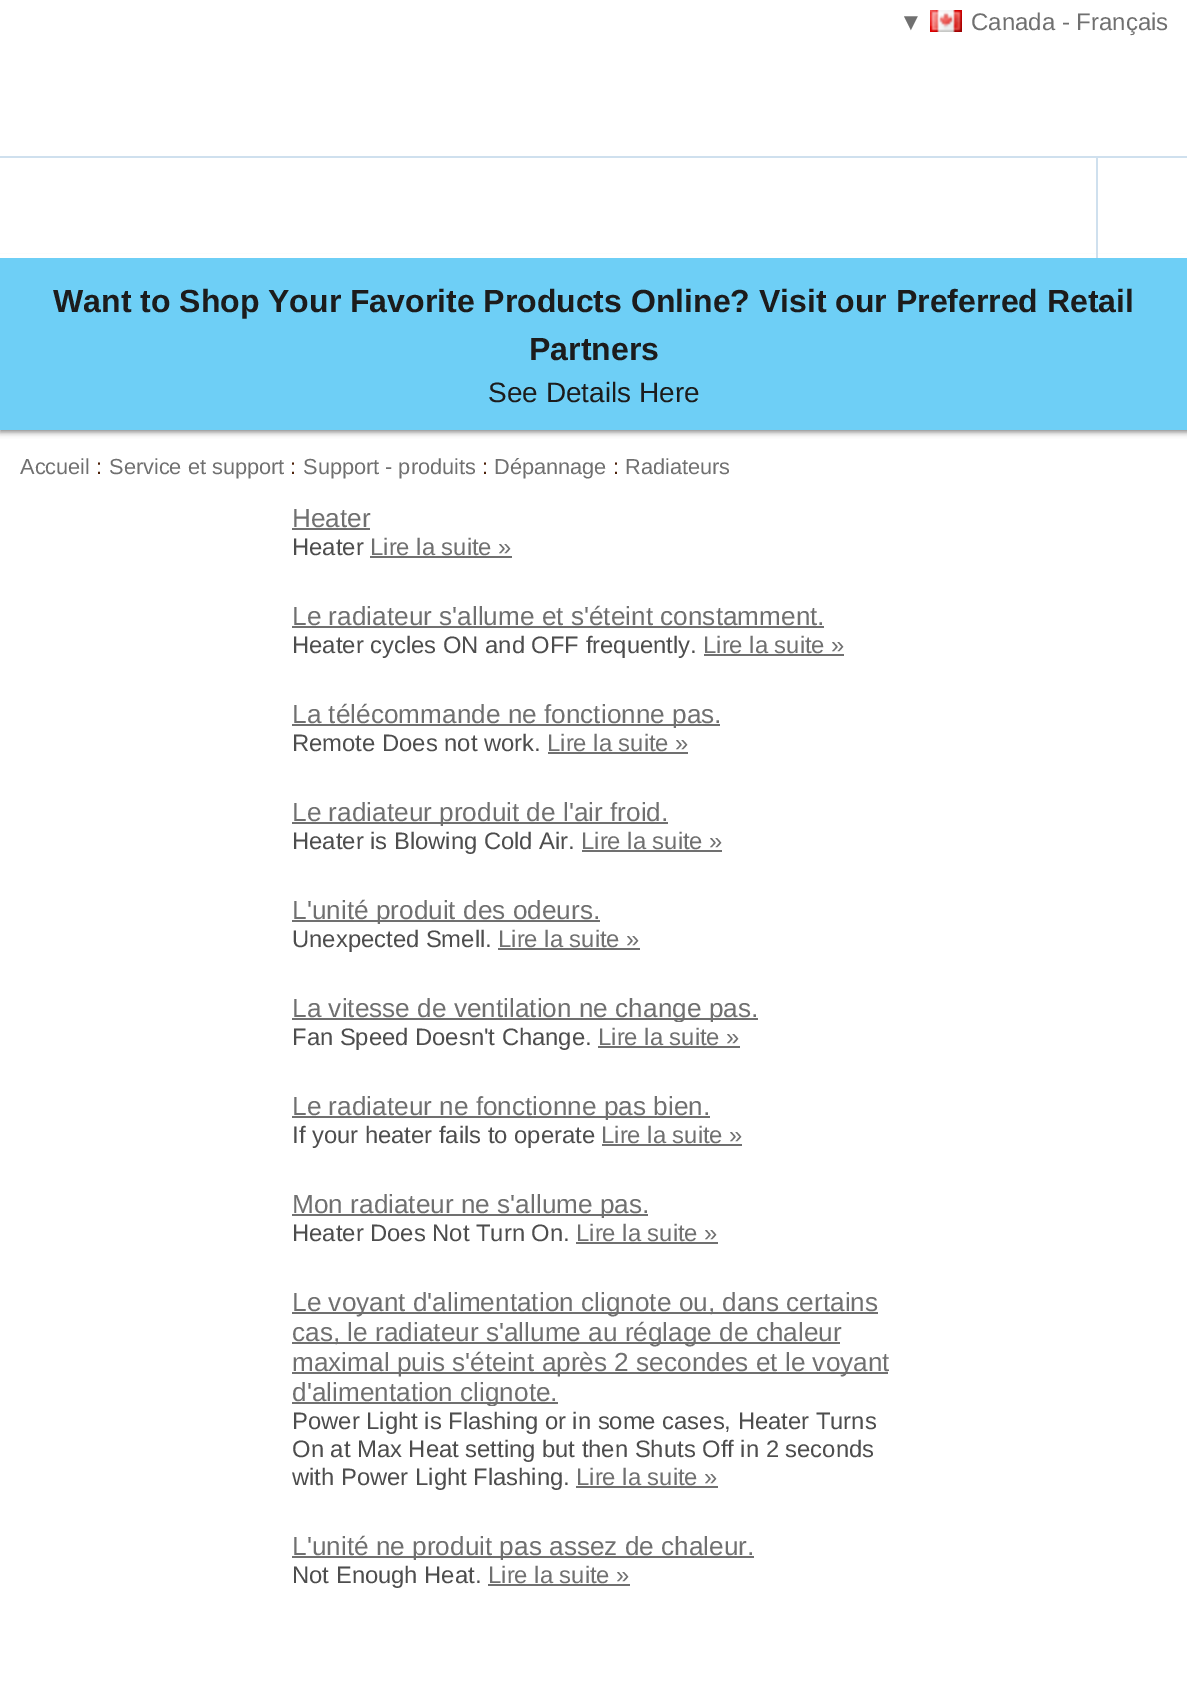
%!PS-Adobe-3.0
%%BoundingBox: 0 0 1187 1685
%%LanguageLevel: 3
%%Pages: 1
%%EndComments
%%BeginProlog
/q { gsave } bind def
/Q { grestore } bind def
/fn { [ exch dup neg 0 0 3 -1 roll 0 0 ] selectfont } def
/tx { moveto show } def
/bx { rectfill } def
/al { dup .setfillconstantalpha .setstrokeconstantalpha } def
/rr { 5 dict begin { /r /h /w /y /x } { exch def } forall
  x r add y moveto x w add y 2 copy h add r arct x w add y h add x 1 index r arct
  x y h add x y r arct x y 2 copy exch w add exch r arct closepath end } def
/sh { 12 dict begin { /a /b /q /h /w /y /x } { exch def } forall gsave /was 0 def
  9 -2 -9 { dup b mul 4 div /e exch def 1 sub .425 mul 2.718 exch exp 1 add a .99 .min exch div /now exch def
    1 1 now sub 1 was sub div sub al /was now def
    w h .min e 2 mul add 0 gt { x e sub y e sub w e 2 mul add h e 2 mul add
      q e add b .6 mul add w h .min 2 div e add .min 0 .max rr fill } if } for grestore end } def
/im { 5 dict begin { /h /w /y /x /name } { exch def } forall
  gsave x y translate w h scale
  w h 8 [w 0 0 h 0 0] name (r) file false 3 colorimage grestore end } def
%%EndProlog
%%BeginSetup
<< /PageSize [1187 1685] /PageUsesTransparency true >> setpagedevice
%%EndSetup
%%Page: 1 1
0 .pushpdf14devicefilter
0 1685 translate 1 -1 scale
4 setmiterlimit
1 setgray
0 0 1187 1685 bx
/LiberationSans-Regular 24 fn
0.439 setgray
(▼) 899 30 tx
(image0.raw) 930 10 32 22 im
(Canada - Français) 971 30 tx
0.812 0.878 0.933 setrgbcolor
0 156 1187 2 bx
0 setgray
0 260 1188 172 0 3 0.5 sh
1 setgray
0 254 1187 4 bx
0.812 0.878 0.933 setrgbcolor
1096 158 2 100 bx
0.431 0.812 0.965 setrgbcolor
0 258 1187 172 bx
/LiberationSans-Bold 32 fn
0.11 setgray
(Want to Shop Your Favorite Products Online? Visit our Preferred Retail) 53 312 tx
(Partners) 529 360 tx
/LiberationSans-Regular 28 fn
(See Details Here) 488 402 tx
/LiberationSans-Regular 21.75 fn
0.439 setgray
(Accueil) 20 474 tx
0.298 0.125 0.031 setrgbcolor
(:) 96 474 tx
0.439 setgray
(Service et support) 109 474 tx
0.298 0.125 0.031 setrgbcolor
(:) 290 474 tx
0.439 setgray
(Support - produits) 303 474 tx
0.298 0.125 0.031 setrgbcolor
(:) 482 474 tx
0.439 setgray
(Dépannage) 494 474 tx
0.298 0.125 0.031 setrgbcolor
(:) 613 474 tx
0.439 setgray
(Radiateurs) 625 474 tx
/LiberationSans-Regular 26.2 fn
(Heater) 292 527 tx
292 528 78 2 bx
/LiberationSans-Regular 23.8 fn
0.302 setgray
(Heater) 292 555 tx
0.439 setgray
(Lire la suite ») 370 555 tx
370 556 142 2 bx
/LiberationSans-Regular 26.2 fn
(Le radiateur s'allume et s'éteint constamment.) 292 625 tx
292 626 532 2 bx
/LiberationSans-Regular 23.8 fn
0.302 setgray
(Heater cycles ON and OFF frequently.) 292 653 tx
0.439 setgray
(Lire la suite ») 703 653 tx
704 654 140 2 bx
292 724 428 2 bx
q
292 698 604 30 rectclip
/LiberationSans-Regular 26.2 fn
(La télécommande ne fonctionne pas.) 292 723 tx
Q
0.302 setgray
(Remote Does not work.) 292 751 tx
0.439 setgray
(Lire la suite ») 547 751 tx
548 752 140 2 bx
292 822 376 2 bx
q
292 796 604 30 rectclip
/LiberationSans-Regular 26.2 fn
(Le radiateur produit de l'air froid.) 292 821 tx
Q
0.302 setgray
(Heater is Blowing Cold Air.) 292 849 tx
0.439 setgray
(Lire la suite ») 581 849 tx
582 850 140 2 bx
292 920 308 2 bx
q
292 894 604 30 rectclip
/LiberationSans-Regular 26.2 fn
(L'unité produit des odeurs.) 292 919 tx
Q
0.302 setgray
(Unexpected Smell.) 292 947 tx
0.439 setgray
(Lire la suite ») 498 947 tx
498 948 142 2 bx
292 1018 466 2 bx
q
292 992 604 30 rectclip
/LiberationSans-Regular 26.2 fn
(La vitesse de ventilation ne change pas.) 292 1017 tx
Q
0.302 setgray
(Fan Speed Doesn't Change.) 292 1045 tx
0.439 setgray
(Lire la suite ») 598 1045 tx
598 1046 142 2 bx
292 1116 418 2 bx
q
292 1090 604 30 rectclip
/LiberationSans-Regular 26.2 fn
(Le radiateur ne fonctionne pas bien.) 292 1115 tx
Q
0.302 setgray
(If your heater fails to operate) 292 1143 tx
0.439 setgray
(Lire la suite ») 601 1143 tx
602 1144 140 2 bx
292 1214 356 2 bx
q
292 1188 604 30 rectclip
/LiberationSans-Regular 26.2 fn
(Mon radiateur ne s'allume pas.) 292 1213 tx
Q
0.302 setgray
(Heater Does Not Turn On.) 292 1241 tx
0.439 setgray
(Lire la suite ») 576 1241 tx
576 1242 142 2 bx
292 1312 586 2 bx
/LiberationSans-Regular 26.2 fn
(Le voyant d'alimentation clignote ou, dans certains) 292 1311 tx
292 1342 548 2 bx
(cas, le radiateur s'allume au réglage de chaleur) 292 1341 tx
292 1372 596 2 bx
(maximal puis s'éteint après 2 secondes et le voyant) 292 1371 tx
292 1402 266 2 bx
q
292 1286 604 120 rectclip
(d'alimentation clignote.) 292 1401 tx
Q
/LiberationSans-Regular 23.8 fn
0.302 setgray
(Power Light is Flashing or in some cases, Heater Turns) 292 1429 tx
(On at Max Heat setting but then Shuts Off in 2 seconds) 292 1457 tx
(with Power Light Flashing.) 292 1485 tx
0.439 setgray
(Lire la suite ») 576 1485 tx
576 1486 142 2 bx
292 1556 462 2 bx
q
292 1530 604 30 rectclip
/LiberationSans-Regular 26.2 fn
(L'unité ne produit pas assez de chaleur.) 292 1555 tx
Q
0.302 setgray
(Not Enough Heat.) 292 1583 tx
0.439 setgray
(Lire la suite ») 488 1583 tx
488 1584 142 2 bx
.poppdf14devicefilter showpage
%%EOF
